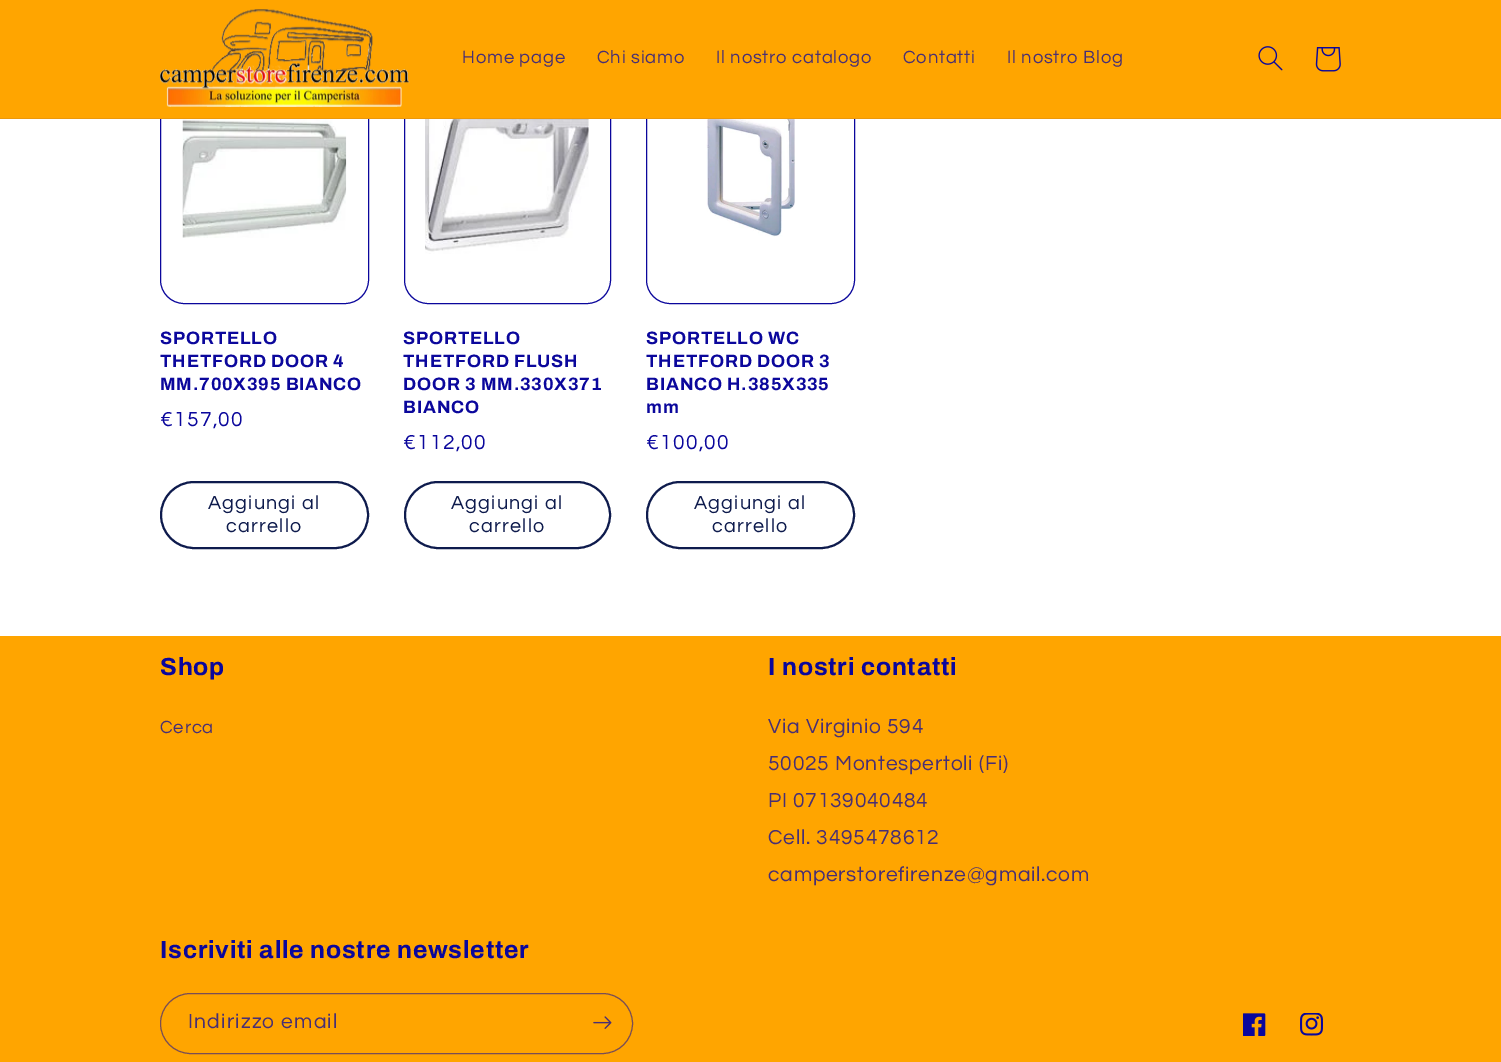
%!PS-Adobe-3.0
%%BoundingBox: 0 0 1501 1062
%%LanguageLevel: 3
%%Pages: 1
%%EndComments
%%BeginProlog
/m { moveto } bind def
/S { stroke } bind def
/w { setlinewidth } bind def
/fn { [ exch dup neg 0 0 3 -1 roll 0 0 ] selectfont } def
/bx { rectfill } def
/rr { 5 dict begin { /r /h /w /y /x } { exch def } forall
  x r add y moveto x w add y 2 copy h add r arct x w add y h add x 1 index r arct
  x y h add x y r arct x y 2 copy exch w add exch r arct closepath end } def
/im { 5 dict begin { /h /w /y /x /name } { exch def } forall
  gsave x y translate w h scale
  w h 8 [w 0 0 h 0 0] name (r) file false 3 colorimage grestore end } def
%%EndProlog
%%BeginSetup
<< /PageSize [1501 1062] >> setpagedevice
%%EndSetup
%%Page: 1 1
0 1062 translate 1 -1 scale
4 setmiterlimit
1 setgray
0 0 1501 1062 bx
0.043 0.027 0.612 setrgbcolor
160.5 44.5 208 259 23.5 rr S
404.5 44.5 206 259 23.5 rr S
646.5 44.5 208 259 23.5 rr S
1 0.647 0 setrgbcolor
0 0 1501 118 bx
0.922 0.596 0.047 setrgbcolor
0 118 1501 1 bx
(image0.raw) 160 9 250 98 im
/Questrial-Regular 18.4 fn
0.282 0.184 0.459 setrgbcolor
462 63 m 0.8 0 (Home page) ashow
597 63 m 0.8 0 (Chi siamo) ashow
716 63 m 0.8 0 (Il nostro catalogo) ashow
903 63 m 0.8 0 (Contatti) ashow
1007 63 m 0.8 0 (Il nostro Blog) ashow
(image1.raw) 1258 46 25 25 im
(image2.raw) 1315 47 26 25 im
(image3.raw) 182 119 165 119 im
/Archivo-Bold 17.9 fn
0.043 0.027 0.612 setrgbcolor
160 344 m 0.8 0 (SPORTELLO) ashow
160 367 m 0.8 0 (THETFORD DOOR 4) ashow
160 390 m 0.8 0 (MM.700X395 BIANCO) ashow
/Questrial-Regular 21 fn
160 426 m 1.25 0 (€157,00) ashow
0.055 0.106 0.302 setrgbcolor
2 w
161 482 207 66 33 rr S
/Questrial-Regular 19.75 fn
208 509 m 1.25 0 (Aggiungi al) ashow
226 532 m 1.25 0 (carrello) ashow
(image4.raw) 425 119 164 135 im
/Archivo-Bold 17.9 fn
0.043 0.027 0.612 setrgbcolor
403 344 m 0.8 0 (SPORTELLO) ashow
403 367 m 0.8 0 (THETFORD FLUSH) ashow
403 390 m 0.8 0 (DOOR 3 MM.330X371) ashow
403 413 m 0.8 0 (BIANCO) ashow
/Questrial-Regular 21 fn
403 449 m 1.25 0 (€112,00) ashow
0.055 0.106 0.302 setrgbcolor
405 482 205 66 33 rr S
/Questrial-Regular 19.75 fn
451 509 m 1.25 0 (Aggiungi al) ashow
469 532 m 1.25 0 (carrello) ashow
(image5.raw) 706 119 89 118 im
/Archivo-Bold 17.9 fn
0.043 0.027 0.612 setrgbcolor
646 344 m 0.8 0 (SPORTELLO WC) ashow
646 367 m 0.8 0 (THETFORD DOOR 3) ashow
646 390 m 0.8 0 (BIANCO H.385X335) ashow
646 413 m 0.8 0 (mm) ashow
/Questrial-Regular 21 fn
646 449 m 1.25 0 (€100,00) ashow
0.055 0.106 0.302 setrgbcolor
647 482 207 66 33 rr S
/Questrial-Regular 19.75 fn
694 509 m 1.25 0 (Aggiungi al) ashow
712 532 m 1.25 0 (carrello) ashow
1 0.647 0 setrgbcolor
0 636 1501 426 bx
/Archivo-Bold 24.75 fn
0.043 0.027 0.612 setrgbcolor
160 675 m 0.8 0 (Shop) ashow
/Questrial-Regular 18.4 fn
0.282 0.184 0.459 setrgbcolor
160 733 m 0.8 0 (Cerca) ashow
/Archivo-Bold 24.75 fn
0.043 0.027 0.612 setrgbcolor
768 675 m 0.8 0 (I nostri contatti) ashow
/Questrial-Regular 21 fn
0.282 0.184 0.459 setrgbcolor
768 733 m 0.8 0 (Via Virginio 594) ashow
768 770 m 0.8 0 (50025 Montespertoli \(Fi\)) ashow
768 807 m 0.8 0 (PI 07139040484) ashow
768 844 m 0.8 0 (Cell. 3495478612) ashow
768 881 m 0.8 0 (camperstorefirenze@gmail.com) ashow
/Archivo-Bold 24.75 fn
0.043 0.027 0.612 setrgbcolor
160 958 m 0.8 0 (Iscriviti alle nostre newsletter) ashow
0.475 0.306 0.337 setrgbcolor
1 w
160.5 993.5 472 60 30 rr S
/Questrial-Regular 21 fn
0.282 0.184 0.459 setrgbcolor
188 1028 m 1.25 0 (Indirizzo email) ashow
(image6.raw) 593 1016 19 13 im
(image7.raw) 1243 1013 23 23 im
(image8.raw) 1300 1013 23 23 im
showpage
%%EOF
